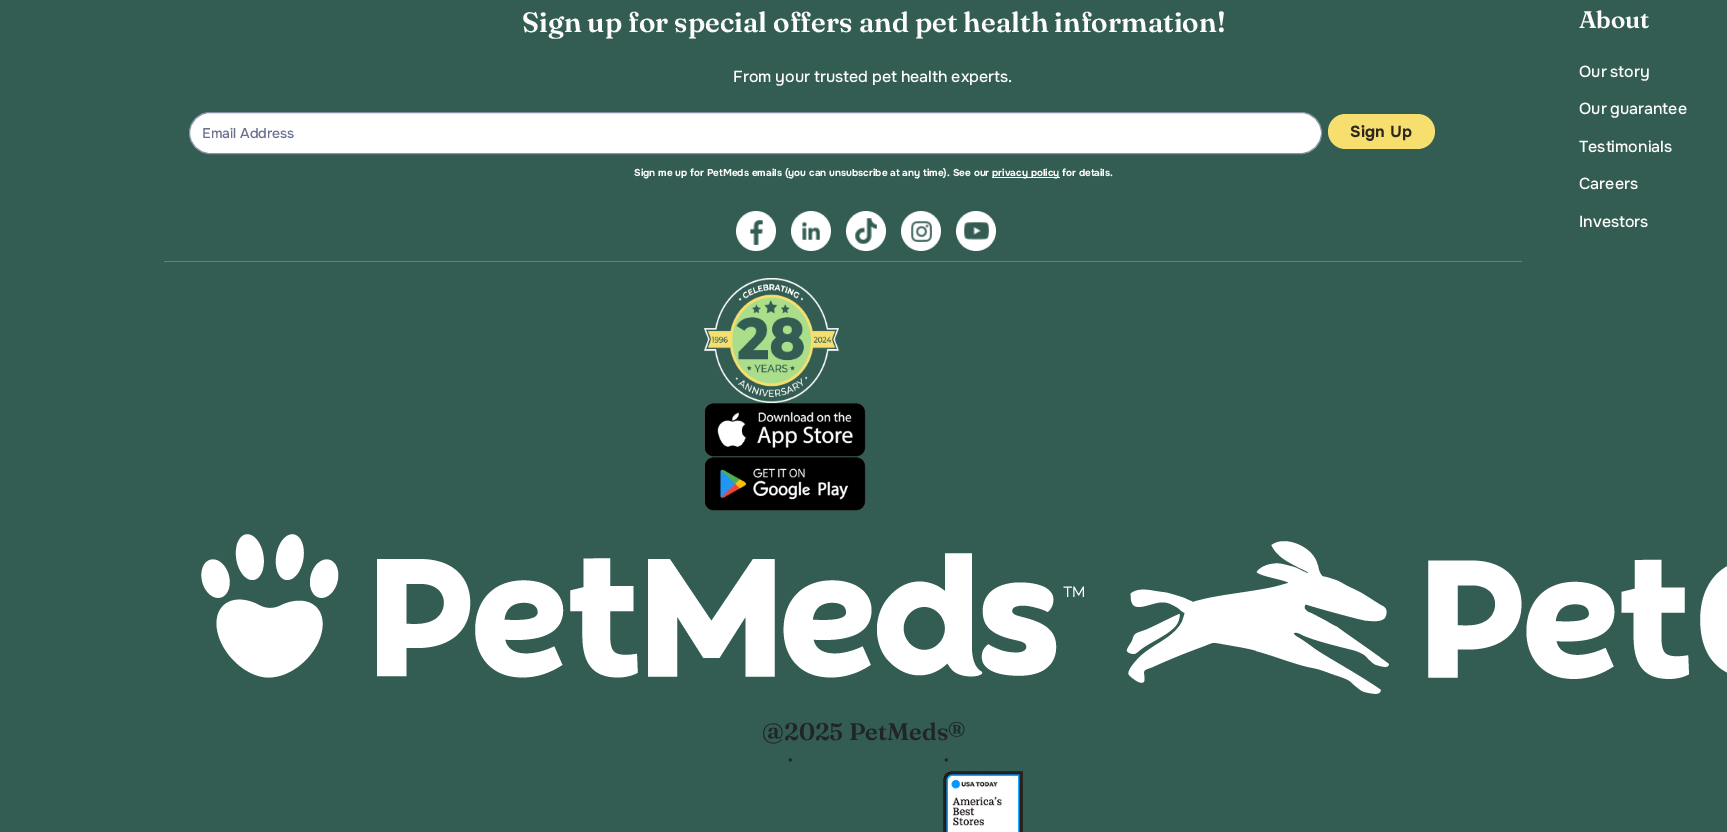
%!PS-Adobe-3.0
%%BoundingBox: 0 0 1727 832
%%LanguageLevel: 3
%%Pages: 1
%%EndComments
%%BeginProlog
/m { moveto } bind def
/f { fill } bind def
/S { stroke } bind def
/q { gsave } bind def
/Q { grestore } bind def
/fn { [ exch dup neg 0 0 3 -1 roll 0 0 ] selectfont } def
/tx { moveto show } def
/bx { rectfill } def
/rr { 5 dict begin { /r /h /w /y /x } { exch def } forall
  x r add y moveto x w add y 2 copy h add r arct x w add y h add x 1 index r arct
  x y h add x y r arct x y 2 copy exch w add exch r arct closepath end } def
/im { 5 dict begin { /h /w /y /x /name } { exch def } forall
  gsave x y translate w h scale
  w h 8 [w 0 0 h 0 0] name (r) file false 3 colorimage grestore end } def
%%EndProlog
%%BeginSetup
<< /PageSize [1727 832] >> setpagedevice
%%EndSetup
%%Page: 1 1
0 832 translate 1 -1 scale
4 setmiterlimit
0.2 0.365 0.325 setrgbcolor
0 0 1727 832 bx
/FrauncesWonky-SemiBold 28 fn
0.992 0.988 0.984 setrgbcolor
(Sign up for special offers and pet health information!) 522 32 tx
/Onest-Medium 16 fn
733 82 m -0.5 0 32 (From your trusted pet health experts.) widthshow
1 setgray
189.5 112.5 1132 41 20.5 rr q f Q
0.533 0.565 0.647 setrgbcolor
S
/Onest-Medium 14 fn
0.412 0.439 0.569 setrgbcolor
(Email Address) 202 138 tx
0.965 0.875 0.431 setrgbcolor
1328 114 107 35 17.5 rr f
/Onest-Bold 16 fn
0.176 0.153 0.125 setrgbcolor
1350 137 m 0.25 0 (Sign Up) ashow
/Onest-Bold 10 fn
0.992 0.988 0.984 setrgbcolor
(Sign me up for PetMeds emails \(you can unsubscribe at any time\). See our) 634 176 tx
992 177 68 1 bx
(privacy policy) 992 176 tx
(for details.) 1062 176 tx
(image0.raw) 736 211 40 40 im
(image1.raw) 791 211 40 40 im
(image2.raw) 846 211 40 40 im
(image3.raw) 901 211 40 40 im
(image4.raw) 956 211 40 40 im
0.38 0.506 0.482 setrgbcolor
164 261 1358 1 bx
(image5.raw) 704 278 135 125 im
(image6.raw) 704 403 162 54 im
(image7.raw) 704 457 162 54 im
(image8.raw) 201 534 1526 160 im
/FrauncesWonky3-SemiBold 24 fn
0.129 0.145 0.161 setrgbcolor
(@2025 PetMeds®) 762 740 tx
/Onest-Medium 14 fn
(•) 788 765 tx
(•) 944 765 tx
(image9.raw) 943 771 80 61 im
/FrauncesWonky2-SemiBold 24 fn
0.992 0.988 0.984 setrgbcolor
1579 28 m -0.25 0 (About) ashow
/Onest-Medium 16 fn
1579 77 m -1 0 32 (Our story) widthshow
1579 114 m -1 0 32 (Our guarantee) widthshow
(Testimonials) 1579 152 tx
(Careers) 1579 189 tx
(Investors) 1579 227 tx
showpage
%%EOF
